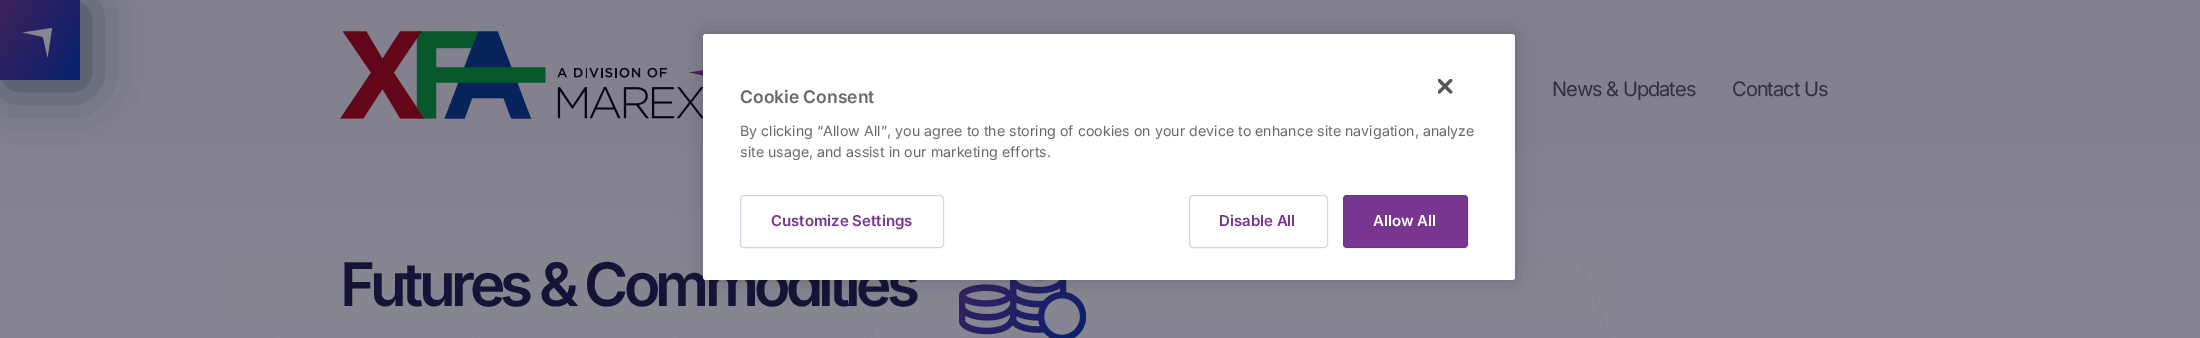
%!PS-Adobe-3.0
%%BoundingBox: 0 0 2200 338
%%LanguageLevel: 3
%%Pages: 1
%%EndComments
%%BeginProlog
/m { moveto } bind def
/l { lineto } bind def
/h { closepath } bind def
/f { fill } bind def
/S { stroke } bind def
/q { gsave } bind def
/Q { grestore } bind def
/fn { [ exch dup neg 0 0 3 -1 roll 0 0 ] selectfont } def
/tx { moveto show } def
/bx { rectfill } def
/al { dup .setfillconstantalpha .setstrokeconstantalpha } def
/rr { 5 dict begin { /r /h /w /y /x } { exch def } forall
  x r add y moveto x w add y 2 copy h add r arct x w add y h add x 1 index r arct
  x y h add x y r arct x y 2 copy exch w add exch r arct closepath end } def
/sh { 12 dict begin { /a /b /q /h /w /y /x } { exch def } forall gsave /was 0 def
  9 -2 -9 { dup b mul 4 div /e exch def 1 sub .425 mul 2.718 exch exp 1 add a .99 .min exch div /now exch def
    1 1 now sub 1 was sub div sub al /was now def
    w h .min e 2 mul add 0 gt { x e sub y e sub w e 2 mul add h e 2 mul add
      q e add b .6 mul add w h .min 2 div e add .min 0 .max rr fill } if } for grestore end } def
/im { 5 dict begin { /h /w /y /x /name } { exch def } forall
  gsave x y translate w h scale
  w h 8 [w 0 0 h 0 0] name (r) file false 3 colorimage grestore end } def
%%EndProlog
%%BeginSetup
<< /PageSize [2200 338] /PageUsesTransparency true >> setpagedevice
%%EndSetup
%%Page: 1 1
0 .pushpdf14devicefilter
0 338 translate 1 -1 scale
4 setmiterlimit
1 setgray
0 0 2200 338 bx
q 0 150 m 2200 150 l 2200 338 l 0 338 l h clip newpath
<< /ShadingType 2 /ColorSpace /DeviceRGB /Coords [1100 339 1100 0] /Extend [true true] /Function << /FunctionType 2 /Domain [0 1] /C0 [0.529 0.525 0.573] /C1 [0.51 0.506 0.553] /N 1 >> >> shfill Q
q 0 0 m 2200 0 l 2200 150 l 0 150 l h clip newpath
<< /ShadingType 2 /ColorSpace /DeviceRGB /Coords [1100 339 1100 0] /Extend [true true] /Function << /FunctionType 2 /Domain [0 1] /C0 [0.51 0.506 0.553] /C1 [0.51 0.506 0.553] /N 1 >> >> shfill Q
0.027 0.09 0.239 setrgbcolor
6 6 80 80 0 26 0.6 sh
q 0 0 m 80 0 l 80 80 l 0 80 l h clip newpath
<< /ShadingType 2 /ColorSpace /DeviceRGB /Coords [-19 8 88 66] /Extend [true true] /Function << /FunctionType 2 /Domain [0 1] /C0 [0.267 0.133 0.353] /C1 [0.027 0.125 0.431] /N 1 >> >> shfill Q
0.529 0.525 0.573 setrgbcolor
43 37 m 23 32.5 l 52 28 l 47.5 57.5 l h f
(image0.raw) 340 31 363 88 im
/Inter-Regular 20 fn
0.184 0.184 0.275 setrgbcolor
1552 96 m -1 0 (News & Updates) ashow
1732 96 m -1 0 (Contact Us) ashow
(image3.raw) 222 263 1388 75 im
/Inter-SemiBold 60 fn
0.082 0.078 0.216 setrgbcolor
340 306 m -4.8 0 (Futures & Commodities) ashow
(image1.raw) 959 280 127 58 im
0 setgray
703 34 812 246 3 11 0.2 sh
1 setgray
703 34 812 246 3 rr f
(image2.raw) 1438 79 15 15 im
/Inter-SemiBold 17.5 fn
0.412 setgray
(Cookie Consent) 740 103 tx
/Inter-Regular 14.23 fn
(By clicking “Allow All”, you agree to the storing of cookies on your device to enhance site navigation, analyze) 740 136 tx
(site usage, and assist in our marketing efforts.) 740 157 tx
0.8 0.839 0.945 setrgbcolor
740.5 195.5 203 52 3.5 rr S
/Inter-SemiBold 15 fn
0.475 0.212 0.565 setrgbcolor
(Customize Settings) 771 226 tx
0.8 0.839 0.945 setrgbcolor
1189.5 195.5 138 52 3.5 rr S
0.475 0.212 0.565 setrgbcolor
(Disable All) 1219 226 tx
1343 195 125 53 4 rr f
0.2 al
0 0.196 0.718 setrgbcolor
1343.5 195.5 124 52 3.5 rr S
1 al
1 setgray
(Allow All) 1373 226 tx
.poppdf14devicefilter showpage
%%EOF
